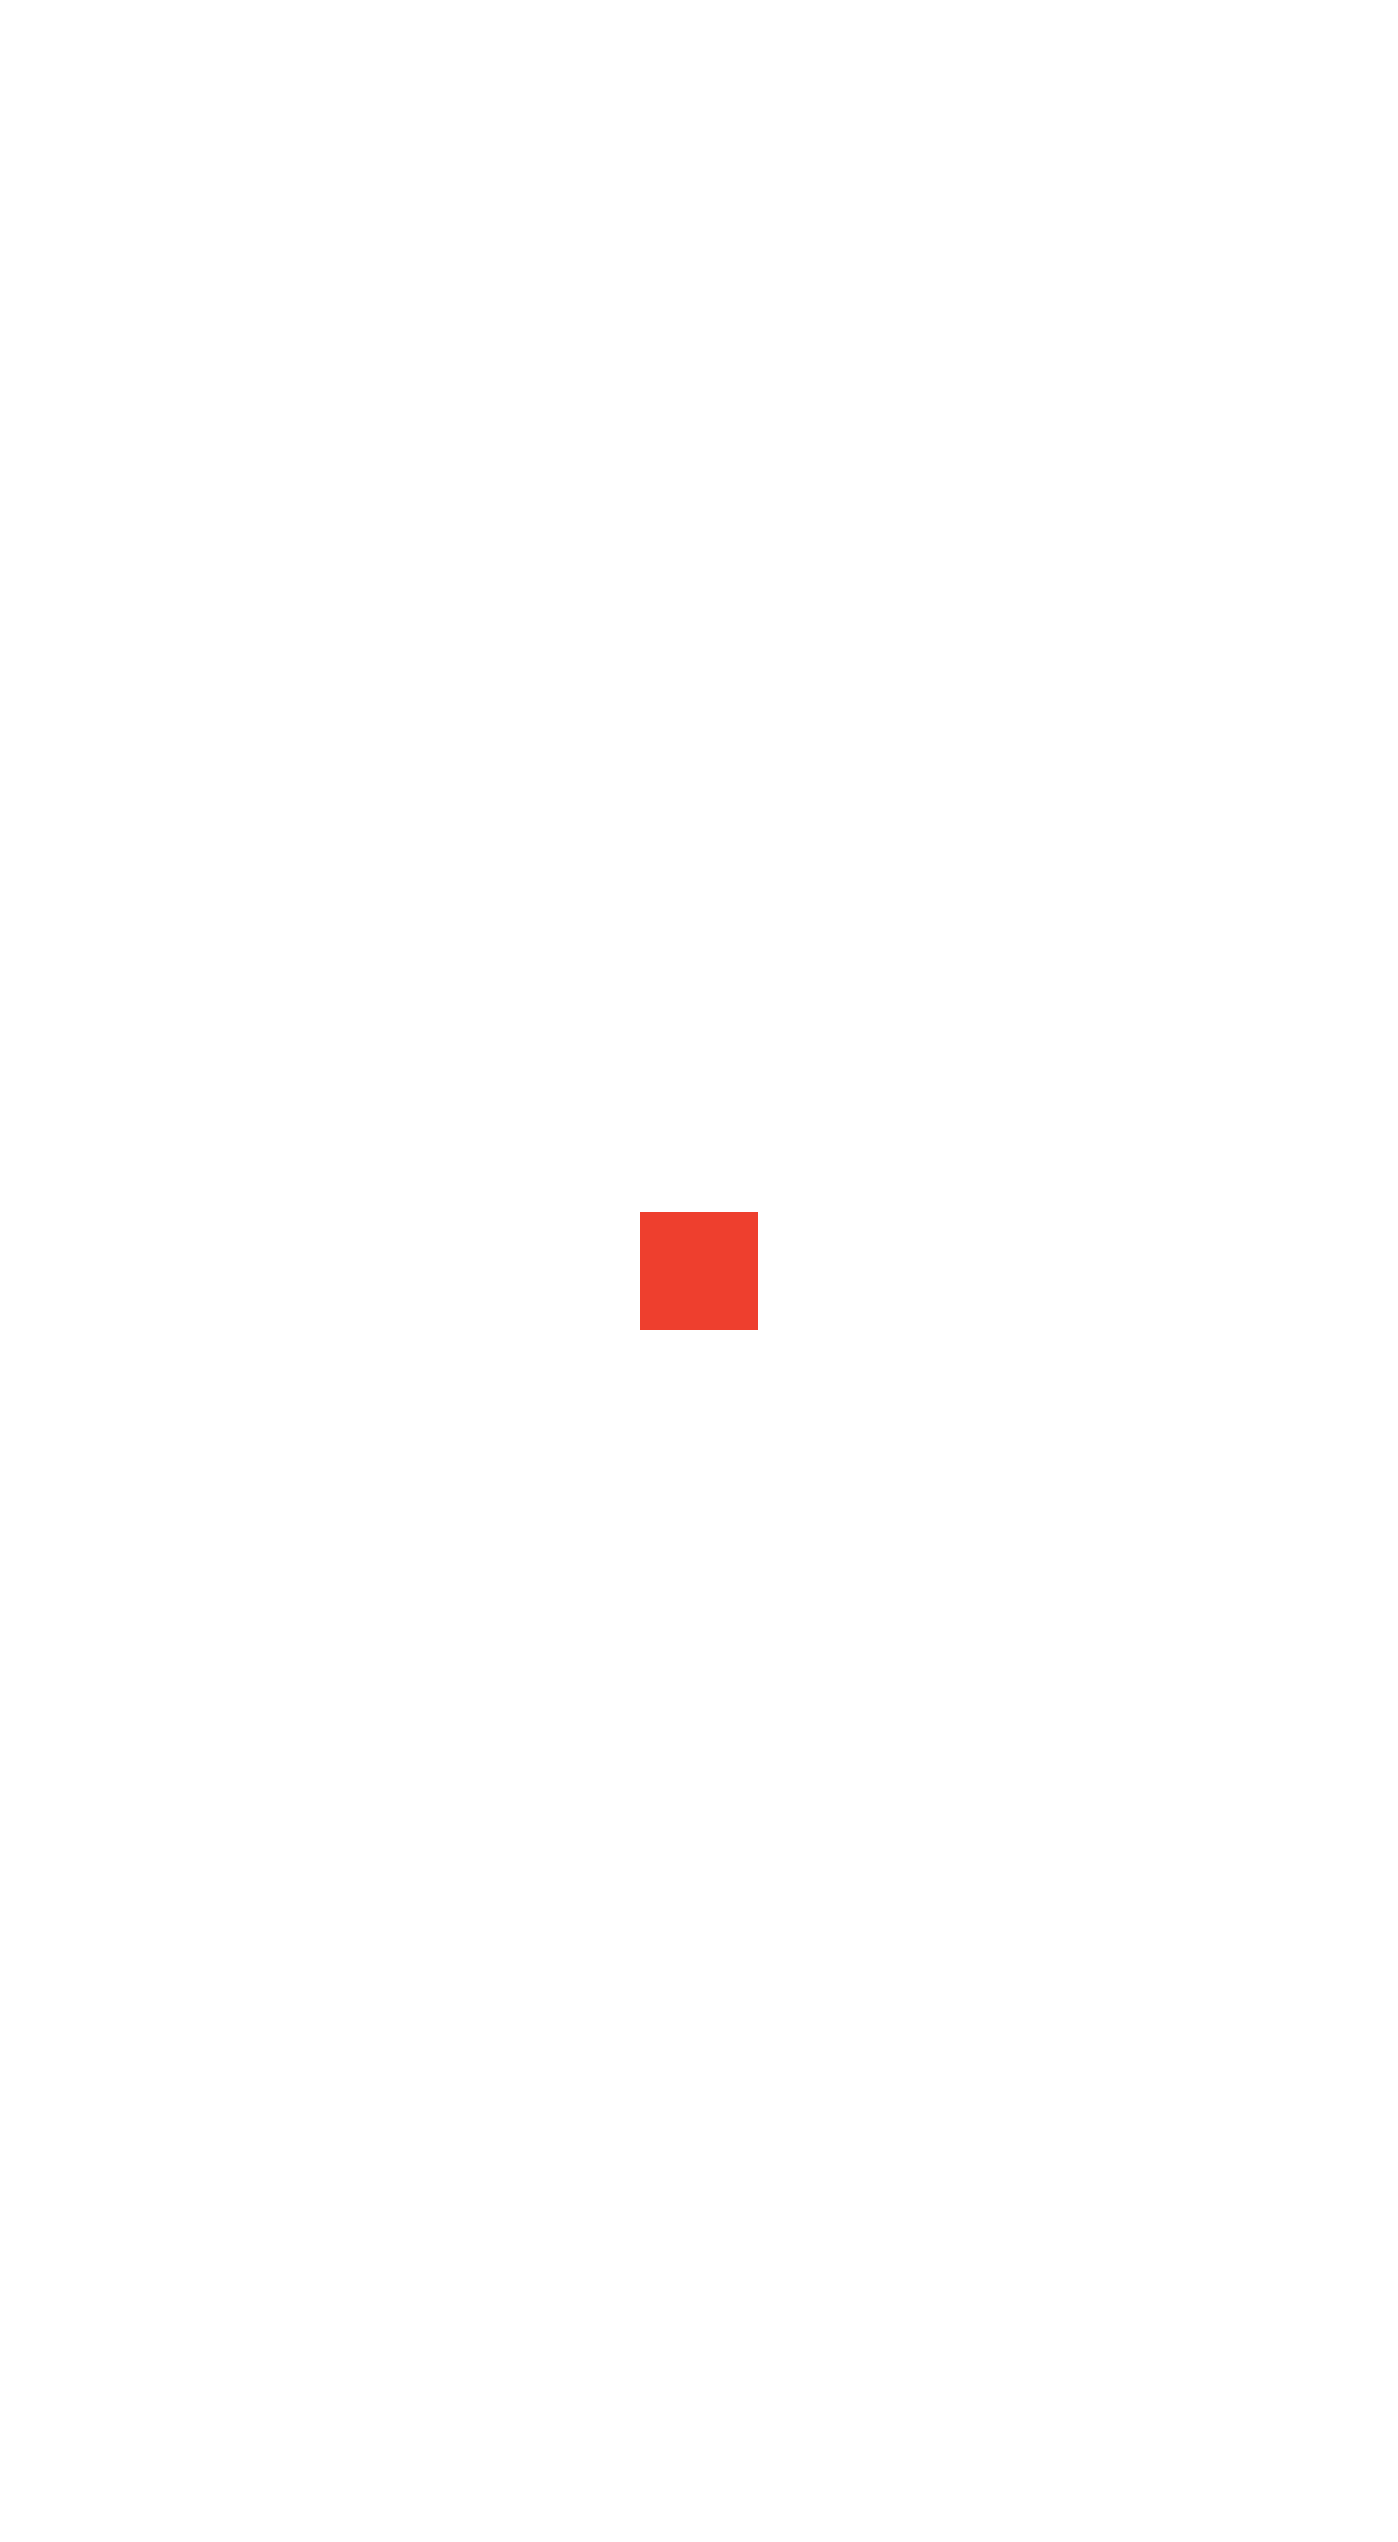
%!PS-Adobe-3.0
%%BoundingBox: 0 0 1398 2542
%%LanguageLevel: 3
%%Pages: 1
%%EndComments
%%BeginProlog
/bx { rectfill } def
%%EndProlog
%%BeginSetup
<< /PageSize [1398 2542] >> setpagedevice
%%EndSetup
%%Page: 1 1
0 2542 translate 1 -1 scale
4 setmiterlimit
1 setgray
0 0 1398 2542 bx
0.933 0.247 0.18 setrgbcolor
640 1212 118 38 bx
640 1250 118 40 bx
640 1290 118 40 bx
showpage
%%EOF
